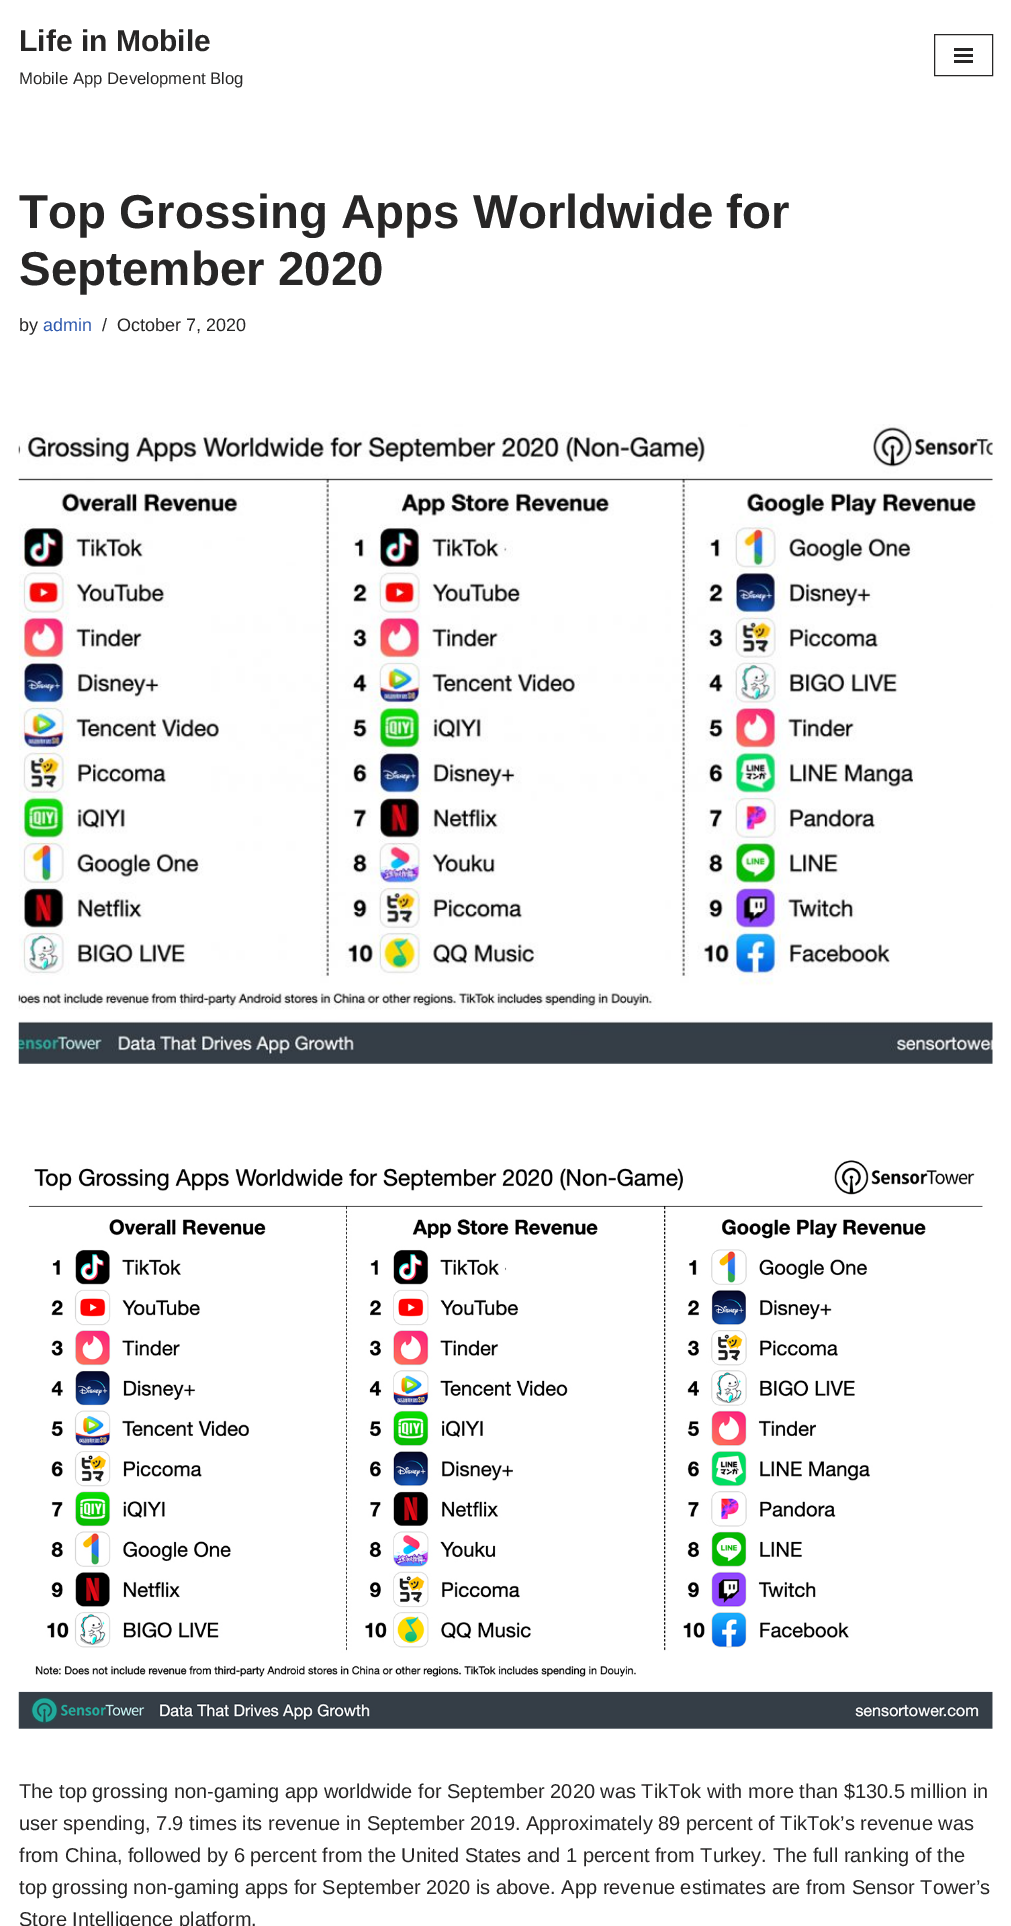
%!PS-Adobe-3.0
%%BoundingBox: 0 0 1011 1926
%%LanguageLevel: 3
%%Pages: 1
%%EndComments
%%BeginProlog
/fn { [ exch dup neg 0 0 3 -1 roll 0 0 ] selectfont } def
/tx { moveto show } def
/bx { rectfill } def
/im { 5 dict begin { /h /w /y /x /name } { exch def } forall
  gsave x y translate w h scale
  w h 8 [w 0 0 h 0 0] name (r) file false 3 colorimage grestore end } def
%%EndProlog
%%BeginSetup
<< /PageSize [1011 1926] >> setpagedevice
%%EndSetup
%%Page: 1 1
0 1926 translate 1 -1 scale
4 setmiterlimit
1 setgray
0 0 1011 1926 bx
/LiberationSans-Bold 30 fn
0.153 0.149 0.149 setrgbcolor
(Life in Mobile) 19 51 tx
/LiberationSans-Regular 16.7 fn
(Mobile App Development Blog) 19 84 tx
934.5 34.5 58 41 rectstroke
954 48 19 3 bx
954 54 19 3 bx
954 60 19 3 bx
/LiberationSans-Bold 47.5 fn
(Top Grossing Apps Worldwide for) 19 228 tx
(September 2020) 19 285 tx
/LiberationSans-Regular 18 fn
(by) 19 331 tx
0.184 0.353 0.682 setrgbcolor
(admin) 43 331 tx
0.153 0.149 0.149 setrgbcolor
(/) 102 331 tx
(October 7, 2020) 117 331 tx
(image0.raw) 18 424 975 640 im
(image1.raw) 18 1160 975 569 im
/LiberationSans-Regular 20 fn
(The top grossing non-gaming app worldwide for September 2020 was TikTok with more than $130.5 million in) 19 1798 tx
(user spending, 7.9 times its revenue in September 2019. Approximately 89 percent of TikTok’s revenue was) 19 1830 tx
(from China, followed by 6 percent from the United States and 1 percent from Turkey. The full ranking of the) 19 1862 tx
(top grossing non-gaming apps for September 2020 is above. App revenue estimates are from Sensor Tower’s) 19 1894 tx
(Store Intelligence platform.) 19 1926 tx
showpage
%%EOF
